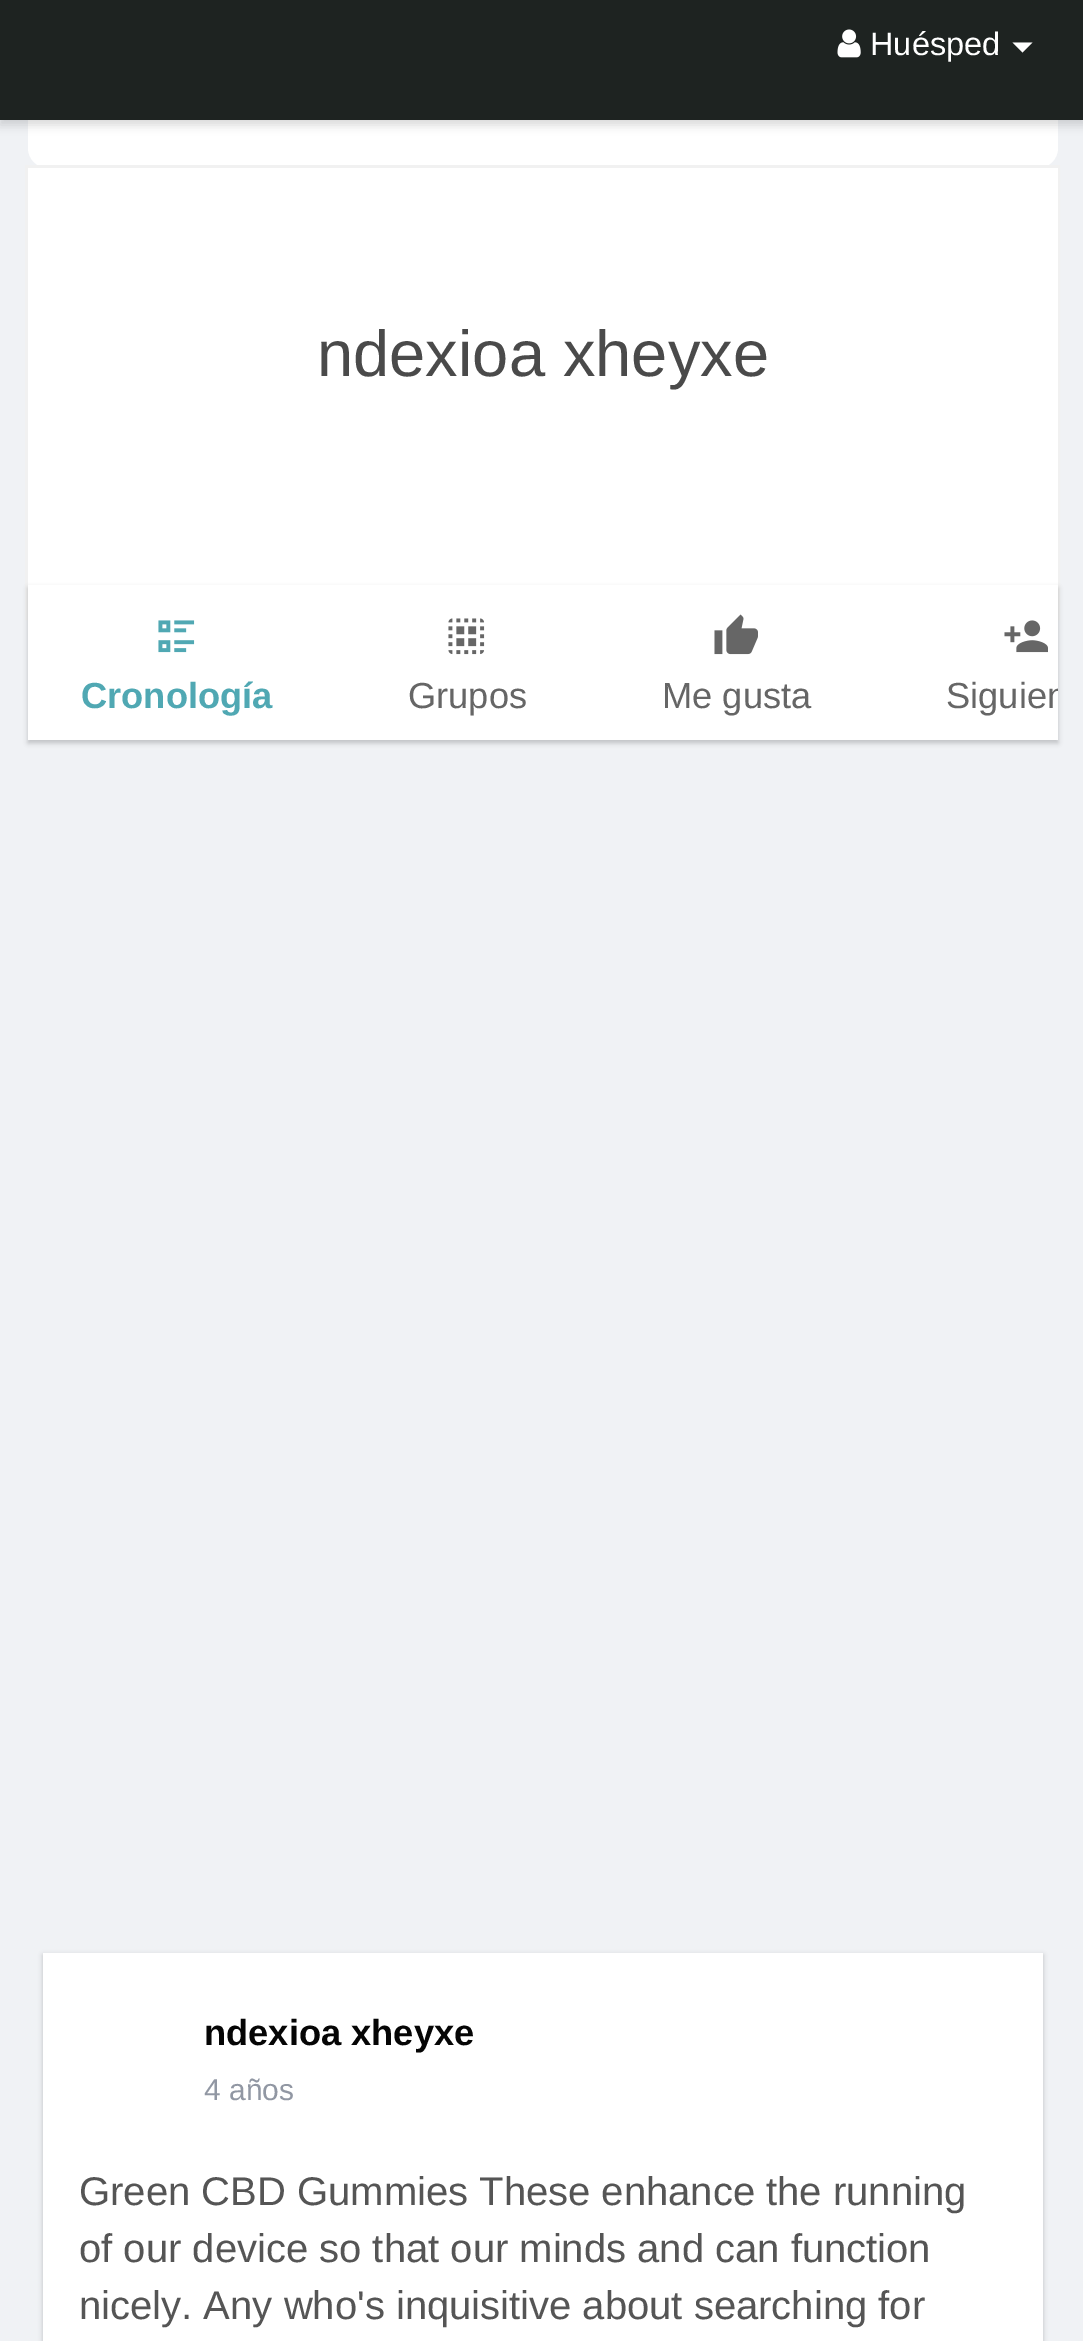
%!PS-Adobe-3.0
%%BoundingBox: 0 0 1083 2341
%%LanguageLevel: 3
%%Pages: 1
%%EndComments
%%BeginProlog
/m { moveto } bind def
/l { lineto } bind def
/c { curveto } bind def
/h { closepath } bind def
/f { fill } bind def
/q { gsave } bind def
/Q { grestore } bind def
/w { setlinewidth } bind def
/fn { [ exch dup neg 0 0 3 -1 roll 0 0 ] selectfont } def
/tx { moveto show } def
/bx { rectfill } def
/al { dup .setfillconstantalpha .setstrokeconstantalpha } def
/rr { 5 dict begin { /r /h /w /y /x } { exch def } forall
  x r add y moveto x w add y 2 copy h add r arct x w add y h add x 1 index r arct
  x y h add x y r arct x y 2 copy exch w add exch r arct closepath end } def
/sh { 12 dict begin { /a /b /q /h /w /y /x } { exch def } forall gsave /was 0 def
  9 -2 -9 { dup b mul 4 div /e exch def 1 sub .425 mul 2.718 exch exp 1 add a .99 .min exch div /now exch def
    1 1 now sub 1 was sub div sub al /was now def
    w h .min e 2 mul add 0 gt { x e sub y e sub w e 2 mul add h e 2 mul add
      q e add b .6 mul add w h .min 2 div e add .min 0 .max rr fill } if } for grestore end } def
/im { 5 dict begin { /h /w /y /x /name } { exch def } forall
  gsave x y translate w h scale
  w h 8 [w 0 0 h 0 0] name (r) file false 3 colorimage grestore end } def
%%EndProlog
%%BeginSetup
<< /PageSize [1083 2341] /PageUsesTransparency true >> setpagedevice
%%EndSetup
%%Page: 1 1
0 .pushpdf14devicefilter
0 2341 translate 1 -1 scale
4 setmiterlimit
0.941 0.949 0.961 setrgbcolor
0 0 1083 2341 bx
1 setgray
28 113 m 1058 113 l 1058 148 l 1058 159 1049 168 1038 168 c 48 168 l 37 168 28 159 28 148 c h f
0 setgray
0 5 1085 120 0 5 0.15 sh
0.118 0.137 0.129 setrgbcolor
0 0 1083 120 bx
(image0.raw) 837 29 24 29 im
/LiberationSans-Regular 32.5 fn
1 setgray
(Huésped) 870 55 tx
1012.5 42.5 m 1032.5 42.5 l 1022.5 52.5 l h f
0.945 setgray
3 w
26.5 166.5 1032 452 rectstroke
1 setgray
28 168 1030 417 bx
/LiberationSans-Regular 65 fn
0.29 setgray
(ndexioa xheyxe) 317 376 tx
0 setgray
28 588 1030 155 0 2.5 0.2 sh
1 setgray
28 585 1030 155 bx
(image1.raw) 158 620 37 33 im
/LiberationSans-Bold 36.25 fn
0.314 0.659 0.702 setrgbcolor
(Cronología) 81 708 tx
(image2.raw) 448 618 37 37 im
/LiberationSans-Regular 36.25 fn
0.4 setgray
(Grupos) 408 708 tx
(image3.raw) 714 614 44 41 im
(Me gusta) 662 708 tx
(image4.raw) 1004 620 44 33 im
q
28 585 1030 158 rectclip
(Siguien) 946 708 tx
Q
0 setgray
43 1955 1000 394 0 2.5 0.2 sh
1 setgray
43 1953 1000 388 bx
/LiberationSans-Bold 36.25 fn
0.02 setgray
(ndexioa xheyxe) 204 2045 tx
/LiberationSans-Regular 30 fn
0.569 0.592 0.639 setrgbcolor
(4 años) 204 2100 tx
/LiberationSans-Regular 40 fn
0.333 setgray
(Green CBD Gummies These enhance the running) 79 2205 tx
(of our device so that our minds and can function) 79 2262 tx
(nicely. Any who's inquisitive about searching for) 79 2319 tx
.poppdf14devicefilter showpage
%%EOF
